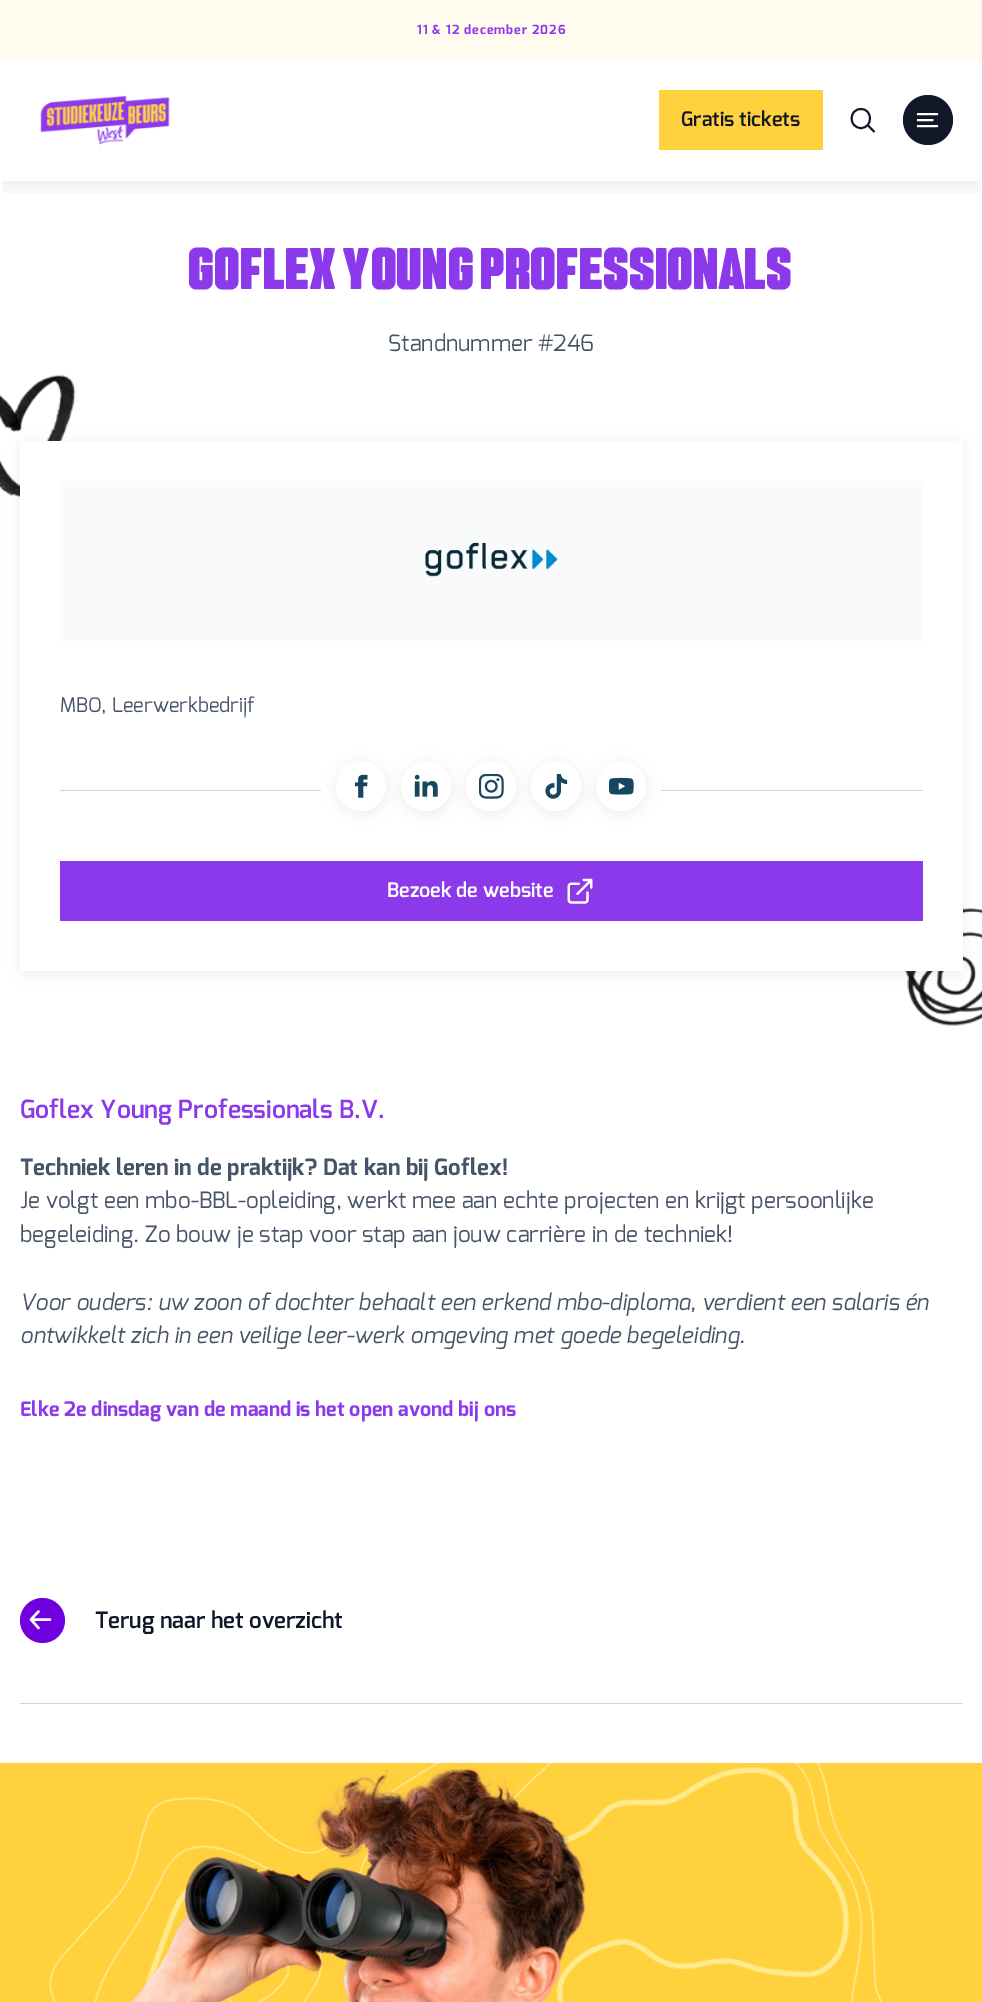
%!PS-Adobe-3.0
%%BoundingBox: 0 0 982 2002
%%LanguageLevel: 3
%%Pages: 1
%%EndComments
%%BeginProlog
/m { moveto } bind def
/l { lineto } bind def
/c { curveto } bind def
/h { closepath } bind def
/f { fill } bind def
/S { stroke } bind def
/q { gsave } bind def
/Q { grestore } bind def
/w { setlinewidth } bind def
/fn { [ exch dup neg 0 0 3 -1 roll 0 0 ] selectfont } def
/tx { moveto show } def
/bx { rectfill } def
/al { dup .setfillconstantalpha .setstrokeconstantalpha } def
/ci { newpath 0 360 arc closepath } def
/rr { 5 dict begin { /r /h /w /y /x } { exch def } forall
  x r add y moveto x w add y 2 copy h add r arct x w add y h add x 1 index r arct
  x y h add x y r arct x y 2 copy exch w add exch r arct closepath end } def
/sh { 12 dict begin { /a /b /q /h /w /y /x } { exch def } forall gsave /was 0 def
  9 -2 -9 { dup b mul 4 div /e exch def 1 sub .425 mul 2.718 exch exp 1 add a .99 .min exch div /now exch def
    1 1 now sub 1 was sub div sub al /was now def
    w h .min e 2 mul add 0 gt { x e sub y e sub w e 2 mul add h e 2 mul add
      q e add b .6 mul add w h .min 2 div e add .min 0 .max rr fill } if } for grestore end } def
/im { 5 dict begin { /h /w /y /x /name } { exch def } forall
  gsave x y translate w h scale
  w h 8 [w 0 0 h 0 0] name (r) file false 3 colorimage grestore end } def
%%EndProlog
%%BeginSetup
<< /PageSize [982 2002] /PageUsesTransparency true >> setpagedevice
%%EndSetup
%%Page: 1 1
0 .pushpdf14devicefilter
0 2002 translate 1 -1 scale
4 setmiterlimit
1 setgray
0 0 982 2002 bx
q
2 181 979 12 rectclip
0.063 0.094 0.157 setrgbcolor
5 15 973 171 0 10 0.08 sh
Q
1 0.984 0.937 setrgbcolor
0 0 982 59 bx
/Exo-Bold 12.5 fn
0.549 0.224 0.922 setrgbcolor
417 34 m 1 0 (11 & 12 december 2026) ashow
(image0.raw) 40 95 130 50 im
1 0.82 0.239 setrgbcolor
659 90 164 60 bx
/Exo-SemiBold 20 fn
0.063 0.094 0.157 setrgbcolor
(Gratis tickets) 681 126 tx
1.9 w
1 setlinejoin
861 128 m 873 128 873 109 861 109 c 848.5 109 848.5 128 861 128 c h 868 125.5 m 874.5 132 l S
928 120 25 ci f
1 setgray
2.1 w
1 setlinecap
918 120 m 932.5 120 l 918 114 m 937 114 l 918 126 m 937 126 l S
/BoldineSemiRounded-Bold 60 fn
0.549 0.224 0.922 setrgbcolor
(Goflex Young Professionals) 189 289 tx
/Exo-Regular 22.5 fn
0.278 0.329 0.404 setrgbcolor
(Standnummer #246) 388 351 tx
(image1.raw) 0 375 76 122 im
(image2.raw) 905 908 77 118 im
0.063 0.094 0.157 setrgbcolor
23 446 937 525 0 7.5 0.1 sh
1 setgray
20 441 943 530 bx
0.976 0.98 0.984 setrgbcolor
60 481 863 160 bx
(image3.raw) 425 542 133 35 im
/Exo-Regular 20 fn
0.278 0.329 0.404 setrgbcolor
(MBO, Leerwerkbedrijf) 60 712 tx
0.816 0.835 0.867 setrgbcolor
60 790 261 1 bx
0.063 0.094 0.157 setrgbcolor
339 766 45 45 22.5 7.5 0.1 sh
1 setgray
361 786 25 ci f
(image4.raw) 355 774 13 24 im
0.063 0.094 0.157 setrgbcolor
404 766 45 45 22.5 7.5 0.1 sh
1 setgray
426 786 25 ci f
(image5.raw) 414 774 24 23 im
0.063 0.094 0.157 setrgbcolor
469 766 45 45 22.5 7.5 0.1 sh
1 setgray
491 786 25 ci f
(image6.raw) 479 774 25 25 im
0.063 0.094 0.157 setrgbcolor
534 766 45 45 22.5 7.5 0.1 sh
1 setgray
556 786 25 ci f
(image7.raw) 545 774 23 25 im
0.063 0.094 0.157 setrgbcolor
599 766 45 45 22.5 7.5 0.1 sh
1 setgray
621 786 25 ci f
(image8.raw) 609 777 25 18 im
0.816 0.835 0.867 setrgbcolor
661 790 262 1 bx
0.549 0.224 0.922 setrgbcolor
60 861 863 60 bx
/Exo-SemiBold 20 fn
1 setgray
(Bezoek de website) 387 897 tx
(image9.raw) 567 878 26 26 im
/Exo-SemiBold 25 fn
0.549 0.224 0.922 setrgbcolor
(Goflex Young Professionals B.V.) 20 1118 tx
/Exo-Bold 22.5 fn
0.278 0.329 0.404 setrgbcolor
(Techniek leren in de praktijk? Dat kan bij Goflex!) 20 1175 tx
/Exo-Regular 22.5 fn
(Je volgt een mbo-BBL-opleiding, werkt mee aan echte projecten en krijgt persoonlijke) 20 1208 tx
(begeleiding. Zo bouw je stap voor stap aan jouw carrière in de techniek!) 20 1242 tx
/Exo-Italic 22.5 fn
(Voor ouders: uw zoon of dochter behaalt een erkend mbo-diploma, verdient een salaris én) 20 1310 tx
(ontwikkelt zich in een veilige leer-werk omgeving met goede begeleiding.) 20 1343 tx
/Exo-Bold 20 fn
0.549 0.224 0.922 setrgbcolor
(Elke 2e dinsdag van de maand is het open avond bij ons) 20 1416 tx
0.816 0.835 0.867 setrgbcolor
20 1703 943 1 bx
0.439 0 0.878 setrgbcolor
42.5 1620.5 22.5 ci f
1 setgray
2.4 w
38.5 1628 m 31 1619.5 l 38.5 1611.5 l 50 1619.5 m 31 1619.5 l S
/Exo-SemiBold 22.5 fn
0.063 0.094 0.157 setrgbcolor
(Terug naar het overzicht) 95 1628 tx
1 0.82 0.239 setrgbcolor
0 1763 982 239 bx
(image10.raw) 49 1762 834 240 im
.poppdf14devicefilter showpage
%%EOF
